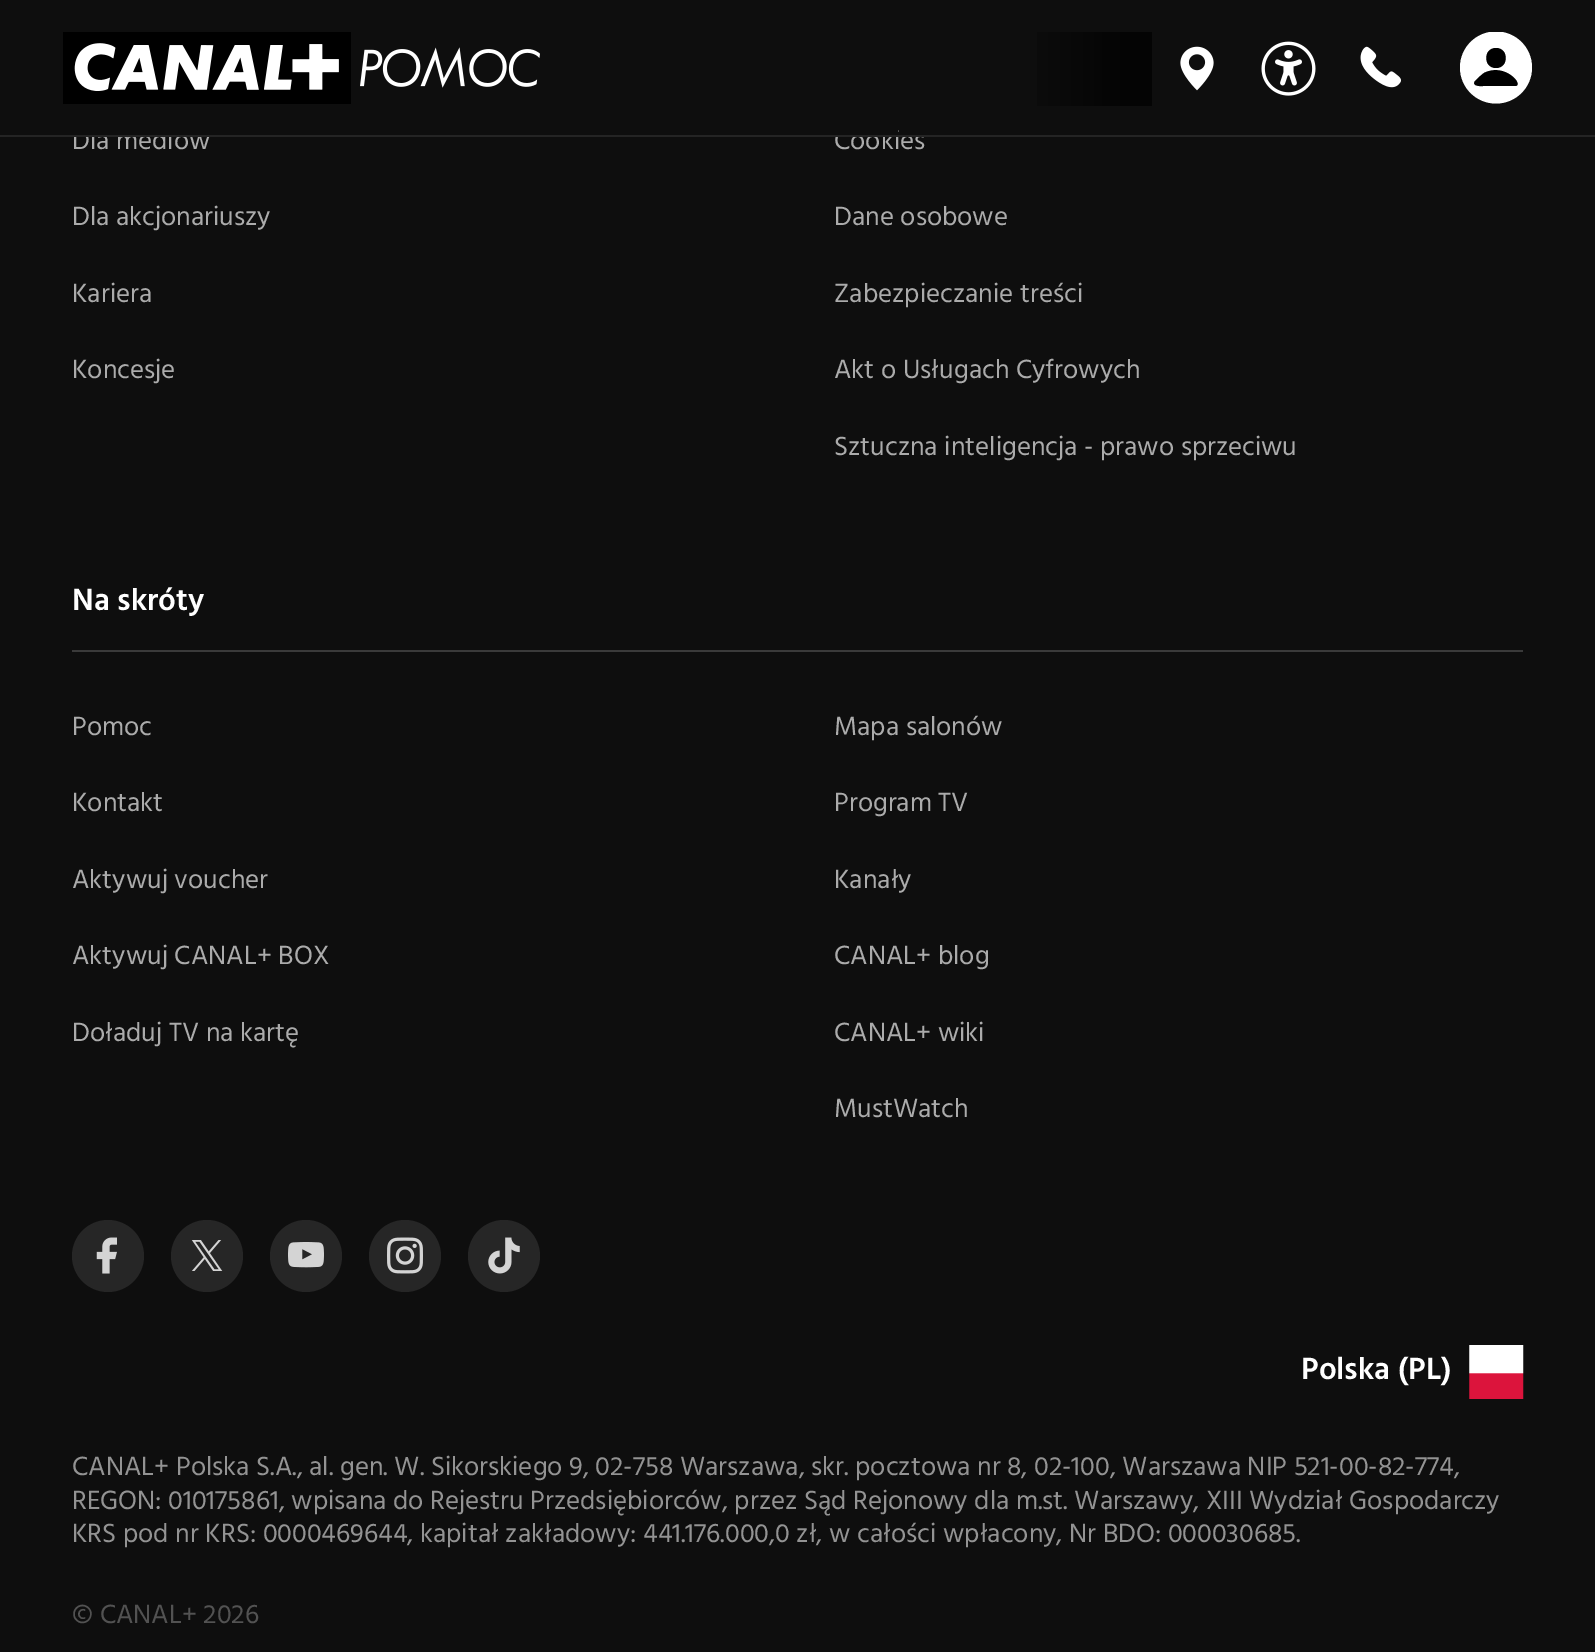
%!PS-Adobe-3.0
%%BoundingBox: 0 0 1595 1652
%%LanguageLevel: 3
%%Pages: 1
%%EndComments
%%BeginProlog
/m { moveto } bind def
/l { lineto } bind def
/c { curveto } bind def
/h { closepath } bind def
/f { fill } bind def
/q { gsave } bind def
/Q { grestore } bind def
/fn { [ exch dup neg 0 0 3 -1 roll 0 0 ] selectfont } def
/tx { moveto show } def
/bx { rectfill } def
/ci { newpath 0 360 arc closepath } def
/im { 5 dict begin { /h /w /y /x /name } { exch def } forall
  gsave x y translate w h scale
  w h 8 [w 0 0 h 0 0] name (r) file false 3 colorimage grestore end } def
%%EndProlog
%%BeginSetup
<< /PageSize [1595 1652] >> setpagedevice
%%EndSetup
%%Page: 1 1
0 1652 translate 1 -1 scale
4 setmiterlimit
0.055 setgray
0 0 1595 1652 bx
/Hind-Regular 27 fn
0.671 setgray
(Dla mediów) 72 149 tx
(Cookies) 834 149 tx
0.055 setgray
74 129 824 6 bx
0.141 setgray
0 135 1595 2 bx
(image0.raw) 63 32 477 72 im
q 1037 32 m 1152 32 l 1152 106 l 1037 106 l h clip newpath
<< /ShadingType 2 /ColorSpace /DeviceRGB /Coords [1008 69 1152 69] /Extend [true true] /Function << /FunctionType 3 /Domain [0 1] /Functions [<< /FunctionType 2 /Domain [0 1] /C0 [0.055 0.055 0.055] /C1 [0.016 0.016 0.016] /N 1 >> << /FunctionType 2 /Domain [0 1] /C0 [0.016 0.016 0.016] /C1 [0.016 0.016 0.016] /N 1 >>] /Bounds [0.8] /Encode [0 1 0 1] >> >> shfill Q
(image1.raw) 1180 46 34 45 im
(image2.raw) 1261 41 55 55 im
(image3.raw) 1360 46 41 42 im
q
1460 32 72 72 rectclip
1 setgray
1496 67.5 36 ci f
Q
0 setgray
1496 48 m 1483 48 1483 68 1496 68 c 1509 68 1509 48 1496 48 c h 1515 86 m 1525 86 1505 62 1484 73 c 1481 75 1478 78 1475 81 c 1471 87 1483 86 1483 86 c h eofill
0.671 setgray
(Dla akcjonariuszy) 72 225 tx
(Kariera) 72 302 tx
(Koncesje) 72 378 tx
(Dane osobowe) 834 225 tx
(Zabezpieczanie treści) 834 302 tx
(Akt o Usługach Cyfrowych) 834 378 tx
(Sztuczna inteligencja - prawo sprzeciwu) 834 455 tx
0.227 setgray
72 650 1451 2 bx
/Hind-SemiBold 31.5 fn
1 setgray
(Na skróty) 72 610 tx
/Hind-Regular 27 fn
0.671 setgray
(Pomoc) 72 735 tx
(Kontakt) 72 811 tx
(Aktywuj voucher) 72 888 tx
(Aktywuj CANAL+ BOX) 72 964 tx
(Doładuj TV na kartę) 72 1041 tx
(Mapa salonów) 834 735 tx
(Program TV) 834 811 tx
(Kanały) 834 888 tx
(CANAL+ blog) 834 964 tx
(CANAL+ wiki) 834 1041 tx
(MustWatch) 834 1117 tx
0.149 setgray
108 1256 36 ci f
(image4.raw) 96 1237 21 37 im
207 1256 36 ci f
(image5.raw) 191 1240 32 31 im
306 1256 36 ci f
(image6.raw) 288 1242 36 26 im
405 1256 36 ci f
(image7.raw) 387 1237 36 37 im
504 1256 36 ci f
(image8.raw) 488 1237 32 37 im
/Hind-SemiBold 31.5 fn
1 setgray
(Polska \(PL\)) 1301 1379 tx
(image9.raw) 1469 1345 55 54 im
/Hind-Regular 27 fn
0.576 setgray
(CANAL+ Polska S.A., al. gen. W. Sikorskiego 9, 02-758 Warszawa, skr. pocztowa nr 8, 02-100, Warszawa NIP 521-00-82-774,) 72 1475 tx
(REGON: 010175861, wpisana do Rejestru Przedsiębiorców, przez Sąd Rejonowy dla m.st. Warszawy, XIII Wydział Gospodarczy) 72 1509 tx
(KRS pod nr KRS: 0000469644, kapitał zakładowy: 441.176.000,0 zł, w całości wpłacony, Nr BDO: 000030685.) 72 1542 tx
0.322 setgray
(© CANAL+ 2026) 72 1623 tx
showpage
%%EOF
